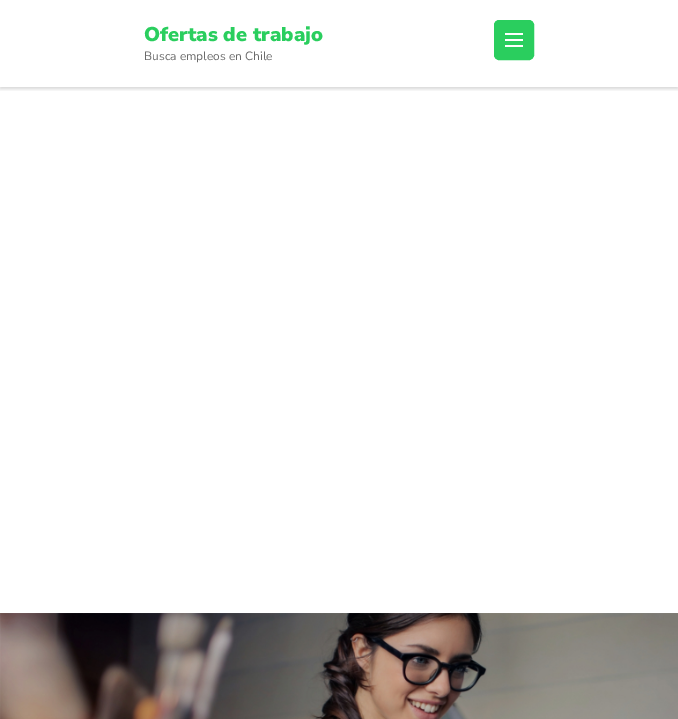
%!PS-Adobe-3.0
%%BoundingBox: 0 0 678 719
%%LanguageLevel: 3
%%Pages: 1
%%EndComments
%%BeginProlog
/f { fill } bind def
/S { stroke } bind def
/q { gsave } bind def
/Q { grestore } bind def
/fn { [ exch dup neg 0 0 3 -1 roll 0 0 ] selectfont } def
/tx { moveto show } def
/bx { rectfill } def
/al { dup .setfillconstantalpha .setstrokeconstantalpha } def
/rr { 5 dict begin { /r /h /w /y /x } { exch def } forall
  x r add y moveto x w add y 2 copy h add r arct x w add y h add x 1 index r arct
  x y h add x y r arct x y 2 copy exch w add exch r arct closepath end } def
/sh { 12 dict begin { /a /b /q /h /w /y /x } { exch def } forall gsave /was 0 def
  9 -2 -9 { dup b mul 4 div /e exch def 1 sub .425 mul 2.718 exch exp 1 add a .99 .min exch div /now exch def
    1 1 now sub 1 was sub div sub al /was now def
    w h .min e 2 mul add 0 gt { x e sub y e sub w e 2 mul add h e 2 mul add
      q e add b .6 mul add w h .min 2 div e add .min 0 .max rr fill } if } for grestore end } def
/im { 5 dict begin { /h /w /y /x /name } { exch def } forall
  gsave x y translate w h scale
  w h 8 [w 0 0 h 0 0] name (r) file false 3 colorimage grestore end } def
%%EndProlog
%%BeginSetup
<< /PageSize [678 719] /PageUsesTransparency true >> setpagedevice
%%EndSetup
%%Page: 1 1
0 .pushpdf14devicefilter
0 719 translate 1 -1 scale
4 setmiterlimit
1 setgray
0 0 678 719 bx
q
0 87 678 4 rectclip
0 setgray
0 2 678 87 0 2 0.16 sh
Q
/NunitoSans-Black 20 fn
0.165 0.808 0.369 setrgbcolor
(Ofertas de trabajo) 144 41 tx
/NunitoSans-Regular 12 fn
0.416 setgray
(Busca empleos en Chile) 144 60 tx
0.165 0.808 0.369 setrgbcolor
494.5 20.5 39 39 4.5 rr q f Q
S
1 setgray
505 33 18 2 bx
505 39 18 2 bx
505 45 18 2 bx
(image0.raw) 0 613 678 106 im
.poppdf14devicefilter showpage
%%EOF
